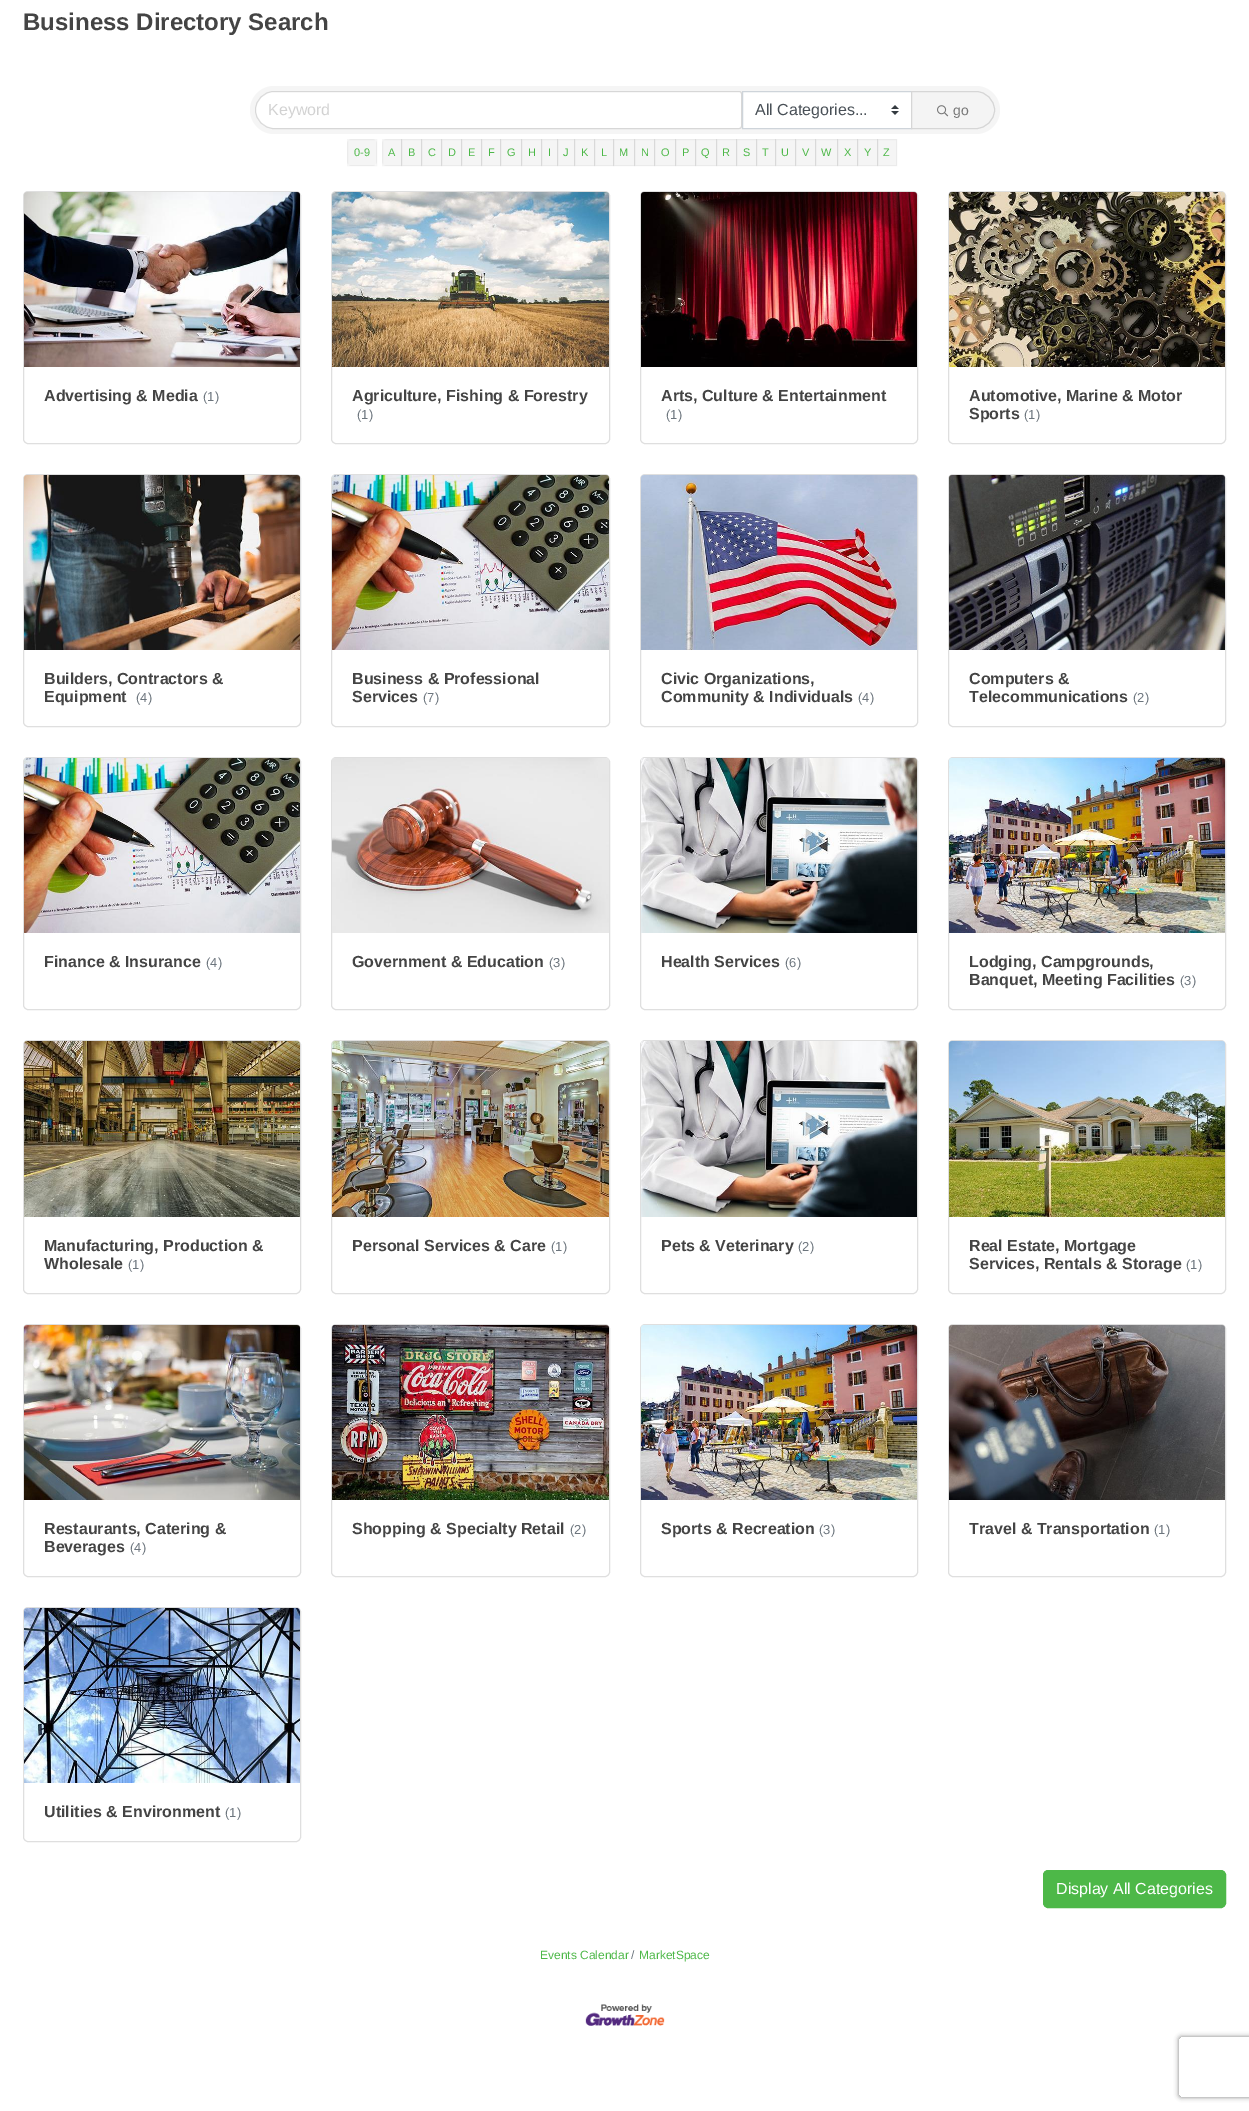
%!PS-Adobe-3.0
%%BoundingBox: 0 0 1249 2111
%%LanguageLevel: 3
%%Pages: 1
%%EndComments
%%BeginProlog
/m { moveto } bind def
/l { lineto } bind def
/c { curveto } bind def
/h { closepath } bind def
/f { fill } bind def
/S { stroke } bind def
/q { gsave } bind def
/Q { grestore } bind def
/fn { [ exch dup neg 0 0 3 -1 roll 0 0 ] selectfont } def
/tx { moveto show } def
/bx { rectfill } def
/al { dup .setfillconstantalpha .setstrokeconstantalpha } def
/rr { 5 dict begin { /r /h /w /y /x } { exch def } forall
  x r add y moveto x w add y 2 copy h add r arct x w add y h add x 1 index r arct
  x y h add x y r arct x y 2 copy exch w add exch r arct closepath end } def
/sh { 12 dict begin { /a /b /q /h /w /y /x } { exch def } forall gsave /was 0 def
  9 -2 -9 { dup b mul 4 div /e exch def 1 sub .425 mul 2.718 exch exp 1 add a .99 .min exch div /now exch def
    1 1 now sub 1 was sub div sub al /was now def
    w h .min e 2 mul add 0 gt { x e sub y e sub w e 2 mul add h e 2 mul add
      q e add b .6 mul add w h .min 2 div e add .min 0 .max rr fill } if } for grestore end } def
/im { 5 dict begin { /h /w /y /x /name } { exch def } forall
  gsave x y translate w h scale
  w h 8 [w 0 0 h 0 0] name (r) file false 3 colorimage grestore end } def
%%EndProlog
%%BeginSetup
<< /PageSize [1249 2111] /PageUsesTransparency true >> setpagedevice
%%EndSetup
%%Page: 1 1
0 .pushpdf14devicefilter
0 2111 translate 1 -1 scale
4 setmiterlimit
1 setgray
0 0 1249 2111 bx
/LiberationSans-Bold 24 fn
0.267 setgray
(Business Directory Search) 23 30 tx
0.961 setgray
250 86 750 48 24 rr f
1 setgray
274 92 m 739 92 l 740 92 741 93 741 94 c 741 126 l 741 127 740 128 739 128 c 274 128 l 264 128 256 120 256 110 c 256 100 264 92 274 92 c h f
0.12 al
0 setgray
274 91.5 m 739 91.5 l 740.5 91.5 741.5 92.5 741.5 94 c 741.5 126 l 741.5 127.5 740.5 128.5 739 128.5 c 274 128.5 l 264 128.5 255.5 120 255.5 110 c 255.5 100 264 91.5 274 91.5 c h S
/LiberationSans-Regular 16 fn
1 al
0.824 setgray
(Keyword) 268 115 tx
1 setgray
743 92 168 36 bx
(image0.raw) 891 105 8 10 im
0.808 0.831 0.855 setrgbcolor
742.5 91.5 169 37 rectstroke
0.286 0.314 0.341 setrgbcolor
(All Categories...) 755 115 tx
0.957 setgray
911.5 91.5 m 976 91.5 l 986 91.5 994.5 100 994.5 110 c 994.5 120 986 128.5 976 128.5 c 911.5 128.5 l h q f Q
0.839 setgray
S
(image1.raw) 937 105 12 12 im
/LiberationSans-Regular 14 fn
0.467 setgray
(go) 953 115 tx
0.961 setgray
347 139 30 27 5 rr f
0.04 al
0 setgray
347.5 139.5 29 26 rectstroke
/LiberationSans-Regular 11 fn
1 al
0.302 0.722 0.282 setrgbcolor
(0-9) 354 156 tx
0.961 setgray
387 139 m 402 139 l 402 166 l 387 166 l 384 166 382 164 382 161 c 382 144 l 382 141 384 139 387 139 c h f
0.04 al
0 setgray
382.5 139.5 19 26 rectstroke
1 al
0.302 0.722 0.282 setrgbcolor
(A) 388 156 tx
0.04 al
0 setgray
401 139 21 27 bx
401.5 139.5 20 26 rectstroke
1 al
0.302 0.722 0.282 setrgbcolor
(B) 408 156 tx
0.04 al
0 setgray
421 139 21 27 bx
421.5 139.5 20 26 rectstroke
1 al
0.302 0.722 0.282 setrgbcolor
(C) 428 156 tx
0.04 al
0 setgray
441 139 21 27 bx
441.5 139.5 20 26 rectstroke
1 al
0.302 0.722 0.282 setrgbcolor
(D) 448 156 tx
0.04 al
0 setgray
461 139 21 27 bx
461.5 139.5 20 26 rectstroke
1 al
0.302 0.722 0.282 setrgbcolor
(E) 468 156 tx
0.04 al
0 setgray
481 139 20 27 bx
481.5 139.5 19 26 rectstroke
1 al
0.302 0.722 0.282 setrgbcolor
(F) 488 156 tx
0.04 al
0 setgray
500 139 22 27 bx
500.5 139.5 21 26 rectstroke
1 al
0.302 0.722 0.282 setrgbcolor
(G) 507 156 tx
0.04 al
0 setgray
521 139 21 27 bx
521.5 139.5 20 26 rectstroke
1 al
0.302 0.722 0.282 setrgbcolor
(H) 528 156 tx
0.04 al
0 setgray
541 139 17 27 bx
541.5 139.5 16 26 rectstroke
1 al
0.302 0.722 0.282 setrgbcolor
(I) 548 156 tx
0.04 al
0 setgray
557 139 18 27 bx
557.5 139.5 17 26 rectstroke
1 al
0.302 0.722 0.282 setrgbcolor
(J) 563 156 tx
0.04 al
0 setgray
574 139 21 27 bx
574.5 139.5 20 26 rectstroke
1 al
0.302 0.722 0.282 setrgbcolor
(K) 581 156 tx
0.04 al
0 setgray
594 139 20 27 bx
594.5 139.5 19 26 rectstroke
1 al
0.302 0.722 0.282 setrgbcolor
(L) 601 156 tx
0.04 al
0 setgray
613 139 22 27 bx
613.5 139.5 21 26 rectstroke
1 al
0.302 0.722 0.282 setrgbcolor
(M) 619 156 tx
0.04 al
0 setgray
634 139 21 27 bx
634.5 139.5 20 26 rectstroke
1 al
0.302 0.722 0.282 setrgbcolor
(N) 641 156 tx
0.04 al
0 setgray
654 139 22 27 bx
654.5 139.5 21 26 rectstroke
1 al
0.302 0.722 0.282 setrgbcolor
(O) 661 156 tx
0.04 al
0 setgray
675 139 21 27 bx
675.5 139.5 20 26 rectstroke
1 al
0.302 0.722 0.282 setrgbcolor
(P) 682 156 tx
0.04 al
0 setgray
695 139 22 27 bx
695.5 139.5 21 26 rectstroke
1 al
0.302 0.722 0.282 setrgbcolor
(Q) 701 156 tx
0.04 al
0 setgray
716 139 21 27 bx
716.5 139.5 20 26 rectstroke
1 al
0.302 0.722 0.282 setrgbcolor
(R) 722 156 tx
0.04 al
0 setgray
736 139 21 27 bx
736.5 139.5 20 26 rectstroke
1 al
0.302 0.722 0.282 setrgbcolor
(S) 743 156 tx
0.04 al
0 setgray
756 139 20 27 bx
756.5 139.5 19 26 rectstroke
1 al
0.302 0.722 0.282 setrgbcolor
(T) 762 156 tx
0.04 al
0 setgray
775 139 21 27 bx
775.5 139.5 20 26 rectstroke
1 al
0.302 0.722 0.282 setrgbcolor
(U) 781 156 tx
0.04 al
0 setgray
795 139 21 27 bx
795.5 139.5 20 26 rectstroke
1 al
0.302 0.722 0.282 setrgbcolor
(V) 802 156 tx
0.04 al
0 setgray
815 139 23 27 bx
815.5 139.5 22 26 rectstroke
1 al
0.302 0.722 0.282 setrgbcolor
(W) 821 156 tx
0.04 al
0 setgray
837 139 21 27 bx
837.5 139.5 20 26 rectstroke
1 al
0.302 0.722 0.282 setrgbcolor
(X) 844 156 tx
0.04 al
0 setgray
857 139 21 27 bx
857.5 139.5 20 26 rectstroke
1 al
0.302 0.722 0.282 setrgbcolor
(Y) 864 156 tx
0.04 al
0 setgray
877 139 20 27 bx
877.5 139.5 19 26 rectstroke
1 al
0.302 0.722 0.282 setrgbcolor
(Z) 883 156 tx
0.875 setgray
23.5 191.5 277 252 4.5 rr S
(image2.raw) 24 192 276 175 im
/LiberationSans-Bold 16 fn
0.267 setgray
(Advertising & Media) 44 401 tx
/LiberationSans-Regular 13 fn
0.424 0.459 0.49 setrgbcolor
(\(1\)) 203 401 tx
0.875 setgray
331.5 191.5 278 252 4.5 rr S
(image3.raw) 332 192 277 175 im
/LiberationSans-Bold 16 fn
0.267 setgray
(Agriculture, Fishing & Forestry) 352 401 tx
/LiberationSans-Regular 13 fn
0.424 0.459 0.49 setrgbcolor
(\(1\)) 357 419 tx
0.875 setgray
640.5 191.5 277 252 4.5 rr S
(image4.raw) 641 192 276 175 im
/LiberationSans-Bold 16 fn
0.267 setgray
(Arts, Culture & Entertainment) 661 401 tx
/LiberationSans-Regular 13 fn
0.424 0.459 0.49 setrgbcolor
(\(1\)) 666 419 tx
0.875 setgray
948.5 191.5 277 252 4.5 rr S
(image5.raw) 949 192 276 175 im
/LiberationSans-Bold 16 fn
0.267 setgray
(Automotive, Marine & Motor) 969 401 tx
(Sports) 969 419 tx
/LiberationSans-Regular 13 fn
0.424 0.459 0.49 setrgbcolor
(\(1\)) 1024 419 tx
0.875 setgray
23.5 474.5 277 252 4.5 rr S
(image6.raw) 24 475 276 175 im
/LiberationSans-Bold 16 fn
0.267 setgray
(Builders, Contractors &) 44 684 tx
(Equipment) 44 702 tx
/LiberationSans-Regular 13 fn
0.424 0.459 0.49 setrgbcolor
(\(4\)) 136 702 tx
0.875 setgray
331.5 474.5 278 252 4.5 rr S
(image7.raw) 332 475 277 175 im
/LiberationSans-Bold 16 fn
0.267 setgray
(Business & Professional) 352 684 tx
(Services) 352 702 tx
/LiberationSans-Regular 13 fn
0.424 0.459 0.49 setrgbcolor
(\(7\)) 423 702 tx
0.875 setgray
640.5 474.5 277 252 4.5 rr S
(image8.raw) 641 475 276 175 im
/LiberationSans-Bold 16 fn
0.267 setgray
(Civic Organizations,) 661 684 tx
(Community & Individuals) 661 702 tx
/LiberationSans-Regular 13 fn
0.424 0.459 0.49 setrgbcolor
(\(4\)) 858 702 tx
0.875 setgray
948.5 474.5 277 252 4.5 rr S
(image9.raw) 949 475 276 175 im
/LiberationSans-Bold 16 fn
0.267 setgray
(Computers &) 969 684 tx
(Telecommunications) 969 702 tx
/LiberationSans-Regular 13 fn
0.424 0.459 0.49 setrgbcolor
(\(2\)) 1133 702 tx
0.875 setgray
23.5 757.5 277 252 4.5 rr S
(image10.raw) 24 758 276 175 im
/LiberationSans-Bold 16 fn
0.267 setgray
(Finance & Insurance) 44 967 tx
/LiberationSans-Regular 13 fn
0.424 0.459 0.49 setrgbcolor
(\(4\)) 206 967 tx
0.875 setgray
331.5 757.5 278 252 4.5 rr S
(image11.raw) 332 758 277 175 im
/LiberationSans-Bold 16 fn
0.267 setgray
(Government & Education) 352 967 tx
/LiberationSans-Regular 13 fn
0.424 0.459 0.49 setrgbcolor
(\(3\)) 549 967 tx
0.875 setgray
640.5 757.5 277 252 4.5 rr S
(image12.raw) 641 758 276 175 im
/LiberationSans-Bold 16 fn
0.267 setgray
(Health Services) 661 967 tx
/LiberationSans-Regular 13 fn
0.424 0.459 0.49 setrgbcolor
(\(6\)) 785 967 tx
0.875 setgray
948.5 757.5 277 252 4.5 rr S
(image13.raw) 949 758 276 175 im
/LiberationSans-Bold 16 fn
0.267 setgray
(Lodging, Campgrounds,) 969 967 tx
(Banquet, Meeting Facilities) 969 985 tx
/LiberationSans-Regular 13 fn
0.424 0.459 0.49 setrgbcolor
(\(3\)) 1180 985 tx
0.875 setgray
23.5 1040.5 277 253 4.5 rr S
(image14.raw) 24 1041 276 176 im
/LiberationSans-Bold 16 fn
0.267 setgray
(Manufacturing, Production &) 44 1251 tx
(Wholesale) 44 1269 tx
/LiberationSans-Regular 13 fn
0.424 0.459 0.49 setrgbcolor
(\(1\)) 128 1269 tx
0.875 setgray
331.5 1040.5 278 253 4.5 rr S
(image15.raw) 332 1041 277 176 im
/LiberationSans-Bold 16 fn
0.267 setgray
(Personal Services & Care) 352 1251 tx
/LiberationSans-Regular 13 fn
0.424 0.459 0.49 setrgbcolor
(\(1\)) 551 1251 tx
0.875 setgray
640.5 1040.5 277 253 4.5 rr S
(image16.raw) 641 1041 276 176 im
/LiberationSans-Bold 16 fn
0.267 setgray
(Pets & Veterinary) 661 1251 tx
/LiberationSans-Regular 13 fn
0.424 0.459 0.49 setrgbcolor
(\(2\)) 798 1251 tx
0.875 setgray
948.5 1040.5 277 253 4.5 rr S
(image17.raw) 949 1041 276 176 im
/LiberationSans-Bold 16 fn
0.267 setgray
(Real Estate, Mortgage) 969 1251 tx
(Services, Rentals & Storage) 969 1269 tx
/LiberationSans-Regular 13 fn
0.424 0.459 0.49 setrgbcolor
(\(1\)) 1186 1269 tx
0.875 setgray
23.5 1324.5 277 252 4.5 rr S
(image18.raw) 24 1325 276 175 im
/LiberationSans-Bold 16 fn
0.267 setgray
(Restaurants, Catering &) 44 1534 tx
(Beverages) 44 1552 tx
/LiberationSans-Regular 13 fn
0.424 0.459 0.49 setrgbcolor
(\(4\)) 130 1552 tx
0.875 setgray
331.5 1324.5 278 252 4.5 rr S
(image19.raw) 332 1325 277 175 im
/LiberationSans-Bold 16 fn
0.267 setgray
(Shopping & Specialty Retail) 352 1534 tx
/LiberationSans-Regular 13 fn
0.424 0.459 0.49 setrgbcolor
(\(2\)) 570 1534 tx
0.875 setgray
640.5 1324.5 277 252 4.5 rr S
(image20.raw) 641 1325 276 175 im
/LiberationSans-Bold 16 fn
0.267 setgray
(Sports & Recreation) 661 1534 tx
/LiberationSans-Regular 13 fn
0.424 0.459 0.49 setrgbcolor
(\(3\)) 819 1534 tx
0.875 setgray
948.5 1324.5 277 252 4.5 rr S
(image21.raw) 949 1325 276 175 im
/LiberationSans-Bold 16 fn
0.267 setgray
(Travel & Transportation) 969 1534 tx
/LiberationSans-Regular 13 fn
0.424 0.459 0.49 setrgbcolor
(\(1\)) 1154 1534 tx
0.875 setgray
23.5 1607.5 277 234 4.5 rr S
(image22.raw) 24 1608 276 175 im
/LiberationSans-Bold 16 fn
0.267 setgray
(Utilities & Environment) 44 1817 tx
/LiberationSans-Regular 13 fn
0.424 0.459 0.49 setrgbcolor
(\(1\)) 225 1817 tx
0.302 0.722 0.282 setrgbcolor
1043.5 1870.5 182 37 4.5 rr q f Q
S
/LiberationSans-Regular 16 fn
1 setgray
(Display All Categories) 1056 1894 tx
/LiberationSans-Regular 12 fn
0.302 0.722 0.282 setrgbcolor
(Events Calendar) 540 1959 tx
0.424 0.459 0.49 setrgbcolor
(/) 631 1959 tx
0.302 0.722 0.282 setrgbcolor
(MarketSpace) 639 1959 tx
(image23.raw) 585 2004 80 22 im
q
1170 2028 m 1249 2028 l 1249 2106 l 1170 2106 l h 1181 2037 m 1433 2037 l 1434 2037 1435 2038 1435 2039 c 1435 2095 l 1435 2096 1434 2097 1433 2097 c 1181 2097 l 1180 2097 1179 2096 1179 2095 c 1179 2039 l 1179 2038 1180 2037 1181 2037 c h eoclip newpath
0.502 setgray
1179 2037 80 60 2 2.5 1 sh
Q
.poppdf14devicefilter showpage
%%EOF
